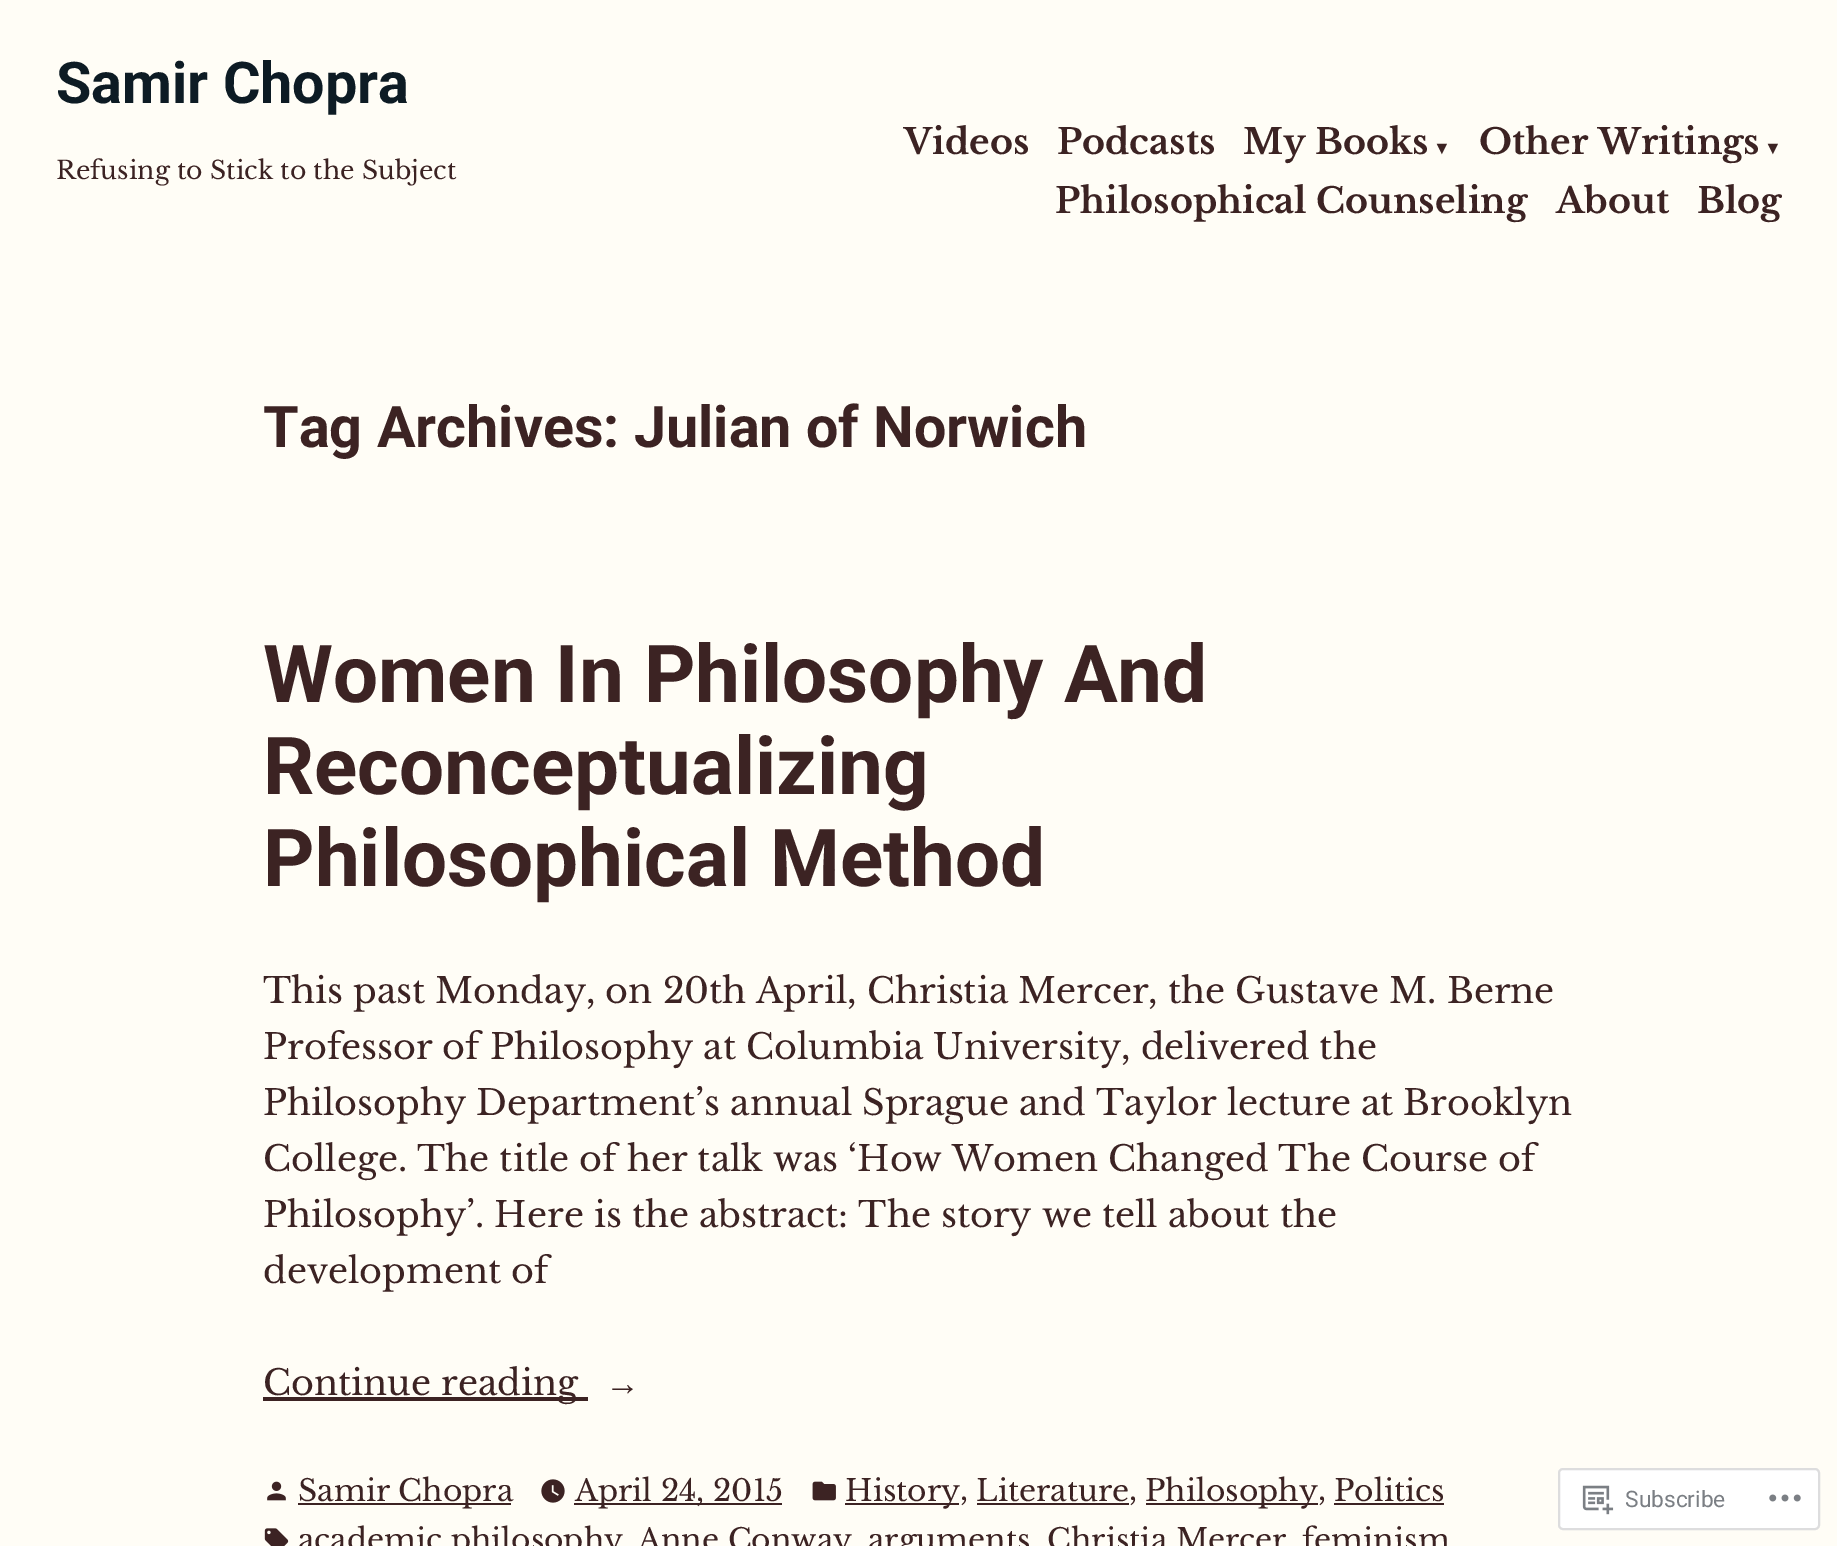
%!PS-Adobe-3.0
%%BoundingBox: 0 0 1837 1546
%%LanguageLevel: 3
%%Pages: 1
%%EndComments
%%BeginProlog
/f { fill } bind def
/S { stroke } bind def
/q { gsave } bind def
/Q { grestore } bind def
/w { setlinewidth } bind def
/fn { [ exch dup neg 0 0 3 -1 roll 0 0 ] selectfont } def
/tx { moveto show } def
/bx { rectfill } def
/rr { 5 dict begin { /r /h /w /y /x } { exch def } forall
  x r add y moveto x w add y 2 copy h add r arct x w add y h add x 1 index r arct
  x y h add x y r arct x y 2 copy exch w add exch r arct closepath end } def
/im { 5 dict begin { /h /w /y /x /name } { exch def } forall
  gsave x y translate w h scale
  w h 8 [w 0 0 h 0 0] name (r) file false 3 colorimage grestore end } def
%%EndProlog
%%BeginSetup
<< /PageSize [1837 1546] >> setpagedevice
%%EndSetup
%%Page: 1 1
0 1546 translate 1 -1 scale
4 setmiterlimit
1 0.992 0.965 setrgbcolor
0 0 1837 1546 bx
/Roboto-Bold 57.5 fn
0.051 0.106 0.141 setrgbcolor
(Samir Chopra) 56 103 tx
/LibreBaskerville-Regular 25.1 fn
0.235 0.137 0.137 setrgbcolor
(Refusing to Stick to the Subject) 56 179 tx
/LibreBaskerville-Bold 35 fn
(Videos) 904 154 tx
(Podcasts) 1057 154 tx
(My Books) 1243 154 tx
/LiberationSerif-Bold 18 fn
(▼) 1433 154 tx
/LibreBaskerville-Bold 35 fn
(Other Writings) 1479 154 tx
/LiberationSerif-Bold 18 fn
(▼) 1764 154 tx
/LibreBaskerville-Bold 35 fn
(Philosophical Counseling) 1055 213 tx
(About) 1556 213 tx
(Blog) 1697 213 tx
/Roboto-Bold 57.5 fn
(Tag Archives: Julian of Norwich) 263 447 tx
/Roboto-Bold 80 fn
(Women In Philosophy And) 263 702 tx
(Reconceptualizing) 263 794 tx
(Philosophical Method) 263 886 tx
/LibreBaskerville-Regular 35 fn
(This past Monday, on 20th April, Christia Mercer, the Gustave M. Berne) 263 1003 tx
(Professor of Philosophy at Columbia University, delivered the) 263 1059 tx
(Philosophy Department’s annual Sprague and Taylor lecture at Brooklyn) 263 1115 tx
(College. The title of her talk was ‘How Women Changed The Course of) 263 1171 tx
(Philosophy’. Here is the abstract: The story we tell about the) 263 1227 tx
(development of) 263 1283 tx
263 1397 325 4 bx
(Continue reading) 263 1395 tx
/LiberationSerif-Regular 35 fn
(→) 605 1395 tx
(image0.raw) 267 1481 19 20 im
298 1503 213 2 bx
/LibreBaskerville-Regular 29.75 fn
(Samir Chopra) 298 1501 tx
(image1.raw) 541 1479 24 24 im
574 1503 208 2 bx
(April 24, 2015) 575 1501 tx
(image2.raw) 812 1481 24 20 im
845 1503 114 2 bx
(History) 845 1501 tx
(,) 960 1500 tx
(Literature) 976 1501 tx
977 1503 152 2 bx
(,) 1129 1500 tx
1146 1503 172 2 bx
(Philosophy) 1145 1501 tx
(,) 1318 1500 tx
(Politics) 1334 1501 tx
1334 1503 110 2 bx
(image3.raw) 264 1528 25 18 im
(academic philosophy) 298 1550 tx
(Anne Conway) 638 1550 tx
(arguments) 868 1550 tx
(Christia Mercer) 1047 1550 tx
(feminism) 1302 1550 tx
1 setgray
1559 1469 260 60 4 rr q f Q
0.867 0.867 0.871 setrgbcolor
2 w
S
(image4.raw) 1582 1485 32 30 im
/Roboto-Regular 22.75 fn
0.482 0.498 0.518 setrgbcolor
(Subscribe) 1625 1507 tx
(image5.raw) 1769 1494 32 8 im
showpage
%%EOF
